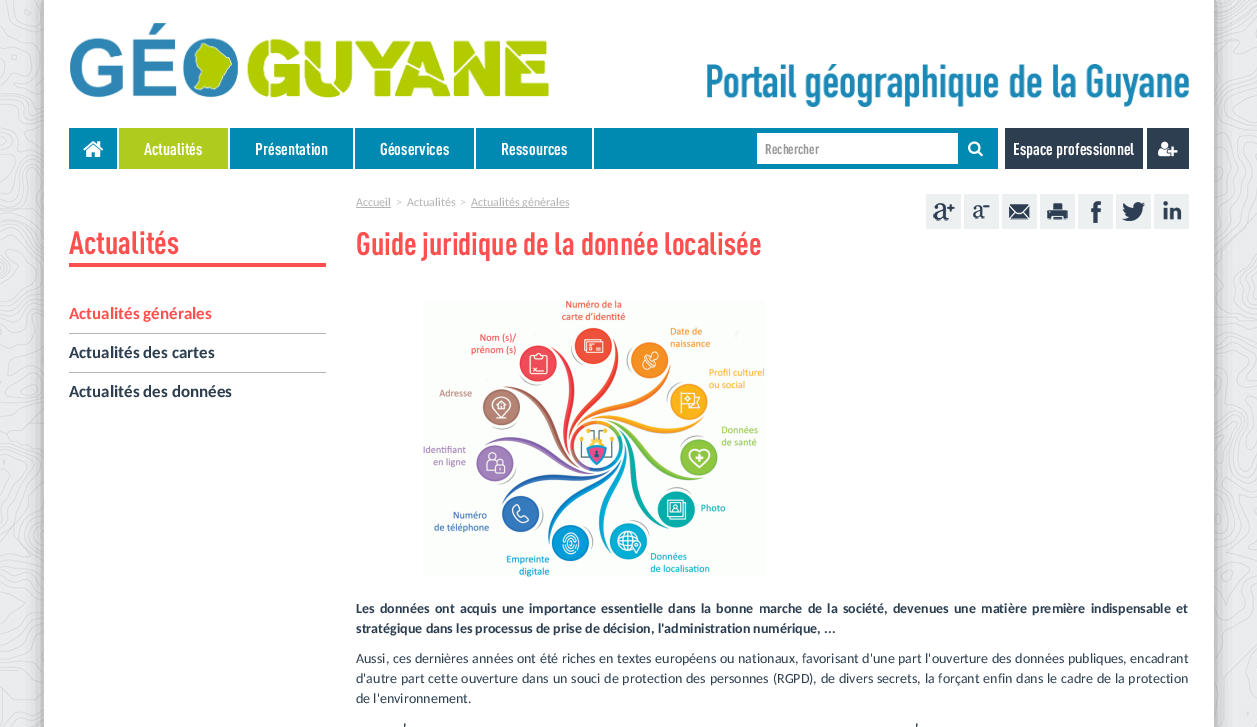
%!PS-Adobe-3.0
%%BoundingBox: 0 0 1257 727
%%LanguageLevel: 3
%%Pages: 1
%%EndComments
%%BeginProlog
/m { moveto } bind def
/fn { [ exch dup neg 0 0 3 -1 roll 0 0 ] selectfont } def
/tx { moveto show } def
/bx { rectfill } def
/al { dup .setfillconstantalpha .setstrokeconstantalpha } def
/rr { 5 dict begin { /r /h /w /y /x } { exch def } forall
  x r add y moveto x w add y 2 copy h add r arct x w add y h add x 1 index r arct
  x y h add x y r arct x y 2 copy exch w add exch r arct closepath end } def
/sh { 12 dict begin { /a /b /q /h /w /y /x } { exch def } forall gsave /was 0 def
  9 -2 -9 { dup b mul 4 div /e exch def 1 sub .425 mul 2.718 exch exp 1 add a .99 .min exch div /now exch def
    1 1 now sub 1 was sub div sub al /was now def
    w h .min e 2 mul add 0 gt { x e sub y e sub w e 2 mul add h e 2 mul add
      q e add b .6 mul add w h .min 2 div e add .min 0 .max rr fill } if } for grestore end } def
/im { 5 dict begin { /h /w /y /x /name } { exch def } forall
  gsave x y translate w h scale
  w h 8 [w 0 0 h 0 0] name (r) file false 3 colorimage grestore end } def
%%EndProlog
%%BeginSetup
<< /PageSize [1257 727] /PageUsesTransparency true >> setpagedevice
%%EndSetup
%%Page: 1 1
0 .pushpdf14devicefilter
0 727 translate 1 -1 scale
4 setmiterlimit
1 setgray
0 0 1257 727 bx
(image0.raw) 0 0 1257 727 im
0.4 setgray
48 2 1162 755 0 10 1 sh
1 setgray
44 0 1170 727 bx
(image1.raw) 70 23 480 75 im
(image2.raw) 707 64 482 43 im
0 0.537 0.694 setrgbcolor
69 128 929 41 bx
1 setgray
117 128 2 41 bx
(image3.raw) 83 141 21 16 im
0.686 0.796 0.114 setrgbcolor
119 128 109 41 bx
1 setgray
228 128 2 41 bx
/DIN-Bold 17 fn
(Actualités) 144 155 tx
353 128 2 41 bx
(Présentation) 255 155 tx
474 128 2 41 bx
(Géoservices) 380 155 tx
592 128 2 41 bx
(Ressources) 501 155 tx
757 133 201 31 bx
/DIN-Bold 14 fn
0.6 setgray
(Rechercher) 765 154 tx
(image4.raw) 968 141 15 16 im
0.173 0.243 0.314 setrgbcolor
1005 128 184 41 bx
/DIN-Bold 17 fn
1 setgray
(Espace professionnel) 1013 155 tx
1143 128 4 41 bx
(image5.raw) 1158 141 20 16 im
1 0.314 0.314 setrgbcolor
69 263 257 4 bx
/DIN-Bold 32 fn
(Actualités) 69 254 tx
/Carlito-Bold 17 fn
(Actualités générales) 69 319 tx
0.706 setgray
69 333 257 1 bx
0.173 0.243 0.314 setrgbcolor
(Actualités des cartes) 69 358 tx
0.706 setgray
69 372 257 1 bx
0.173 0.243 0.314 setrgbcolor
(Actualités des données) 69 397 tx
/Carlito-Regular 12 fn
0.706 setgray
(Accueil) 356 206 tx
356 207 35 1 bx
0.8 setgray
(>) 396 206 tx
0.706 setgray
(Actualités) 407 206 tx
0.8 setgray
(>) 460 206 tx
0.706 setgray
471 207 98 1 bx
(Actualités générales) 471 206 tx
0.925 0.941 0.945 setrgbcolor
926 194 35 35 bx
(image6.raw) 933 203 22 18 im
964 194 35 35 bx
(image7.raw) 973 205 17 14 im
1002 194 35 35 bx
(image8.raw) 1009 204 21 16 im
1040 194 35 35 bx
(image9.raw) 1047 203 21 17 im
1078 194 35 35 bx
(image10.raw) 1091 201 10 22 im
1116 194 35 35 bx
(image11.raw) 1122 202 23 19 im
1154 194 35 35 bx
(image12.raw) 1163 201 19 19 im
/DIN-Bold 32 fn
1 0.314 0.314 setrgbcolor
(Guide juridique de la donnée localisée) 356 255 tx
(image13.raw) 423 300 342 277 im
/Carlito-Bold 14 fn
0.173 0.243 0.314 setrgbcolor
356 613 m 2 0 32 (Les données ont acquis une importance essentielle dans la bonne marche de la société, devenues une matière première indispensable et) widthshow
(stratégique dans les processus de prise de décision, l'administration numérique, ...) 356 633 tx
/Carlito-Regular 14 fn
356 663 m 0.4 0 32 (Aussi, ces dernières années ont été riches en textes européens ou nationaux, favorisant d'une part l'ouverture des données publiques, encadrant) widthshow
356 683 m 0.65 0 32 (d'autre part cette ouverture dans un souci de protection des personnes \(RGPD\), de divers secrets, la forçant enfin dans le cadre de la protection) widthshow
(de l'environnement.) 356 703 tx
/Carlito-Bold 14 fn
(') 403 733 tx
(') 915 733 tx
.poppdf14devicefilter showpage
%%EOF
